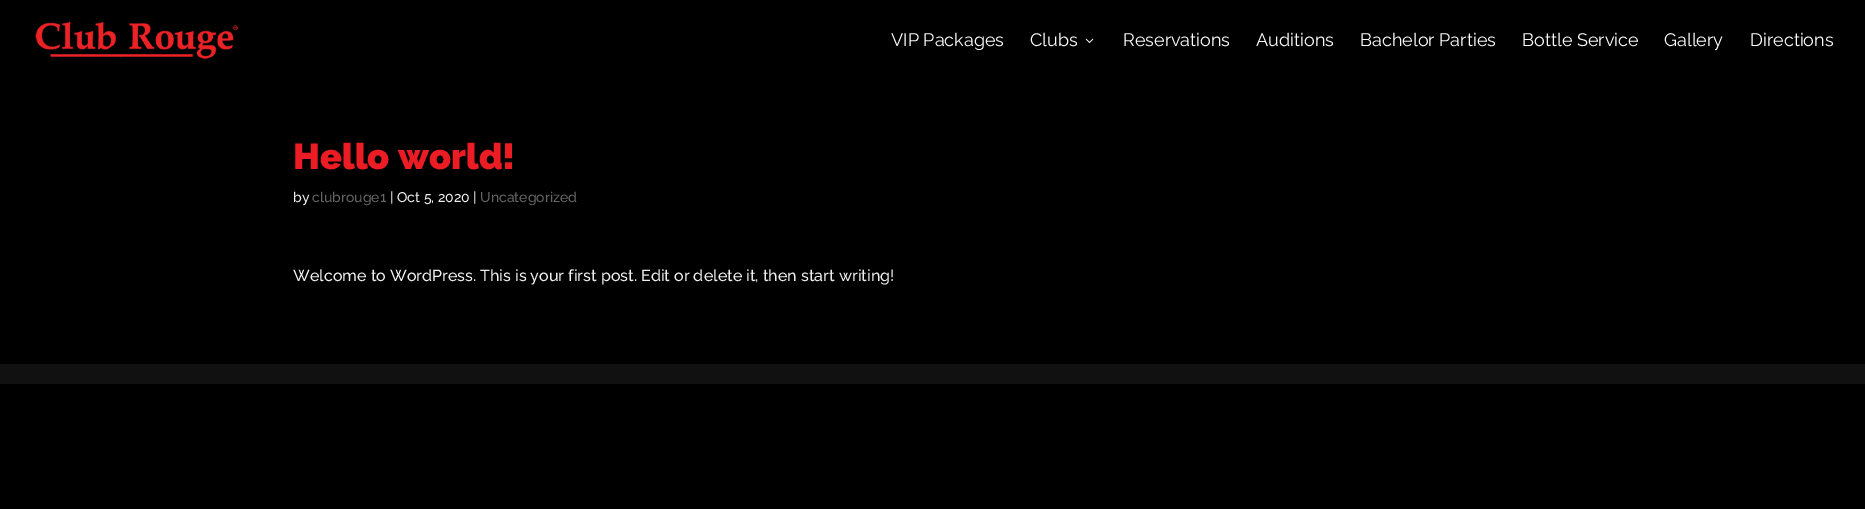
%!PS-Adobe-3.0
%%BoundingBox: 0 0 1865 509
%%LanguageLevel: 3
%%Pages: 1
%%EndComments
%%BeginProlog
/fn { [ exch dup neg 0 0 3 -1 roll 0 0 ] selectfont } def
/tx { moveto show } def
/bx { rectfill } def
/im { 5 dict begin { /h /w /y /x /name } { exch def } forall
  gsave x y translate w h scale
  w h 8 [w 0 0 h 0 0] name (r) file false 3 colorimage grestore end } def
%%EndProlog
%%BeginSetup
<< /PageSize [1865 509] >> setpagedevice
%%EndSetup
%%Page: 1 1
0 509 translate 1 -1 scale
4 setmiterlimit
0 setgray
0 0 1865 509 bx
(image0.raw) 35 21 204 39 im
/Raleway-Regular 18 fn
1 setgray
(VIP Packages) 891 46 tx
(Clubs) 1030 46 tx
(image1.raw) 1085 38 9 5 im
(Reservations) 1123 46 tx
(Auditions) 1256 46 tx
(Bachelor Parties) 1360 46 tx
(Bottle Service) 1522 46 tx
(Gallery) 1664 46 tx
(Directions) 1750 46 tx
/Raleway-Black 36 fn
0.925 0.11 0.141 setrgbcolor
(Hello world!) 293 169 tx
/Raleway-Medium 14 fn
0.937 setgray
(by) 293 202 tx
0.4 setgray
(clubrouge1) 312 202 tx
0.937 setgray
(| Oct 5, 2020 |) 390 202 tx
0.4 setgray
(Uncategorized) 480 202 tx
/Raleway-Medium 16 fn
0.937 setgray
(Welcome to WordPress. This is your first post. Edit or delete it, then start writing!) 293 281 tx
0.067 setgray
0 364 1865 20 bx
showpage
%%EOF
